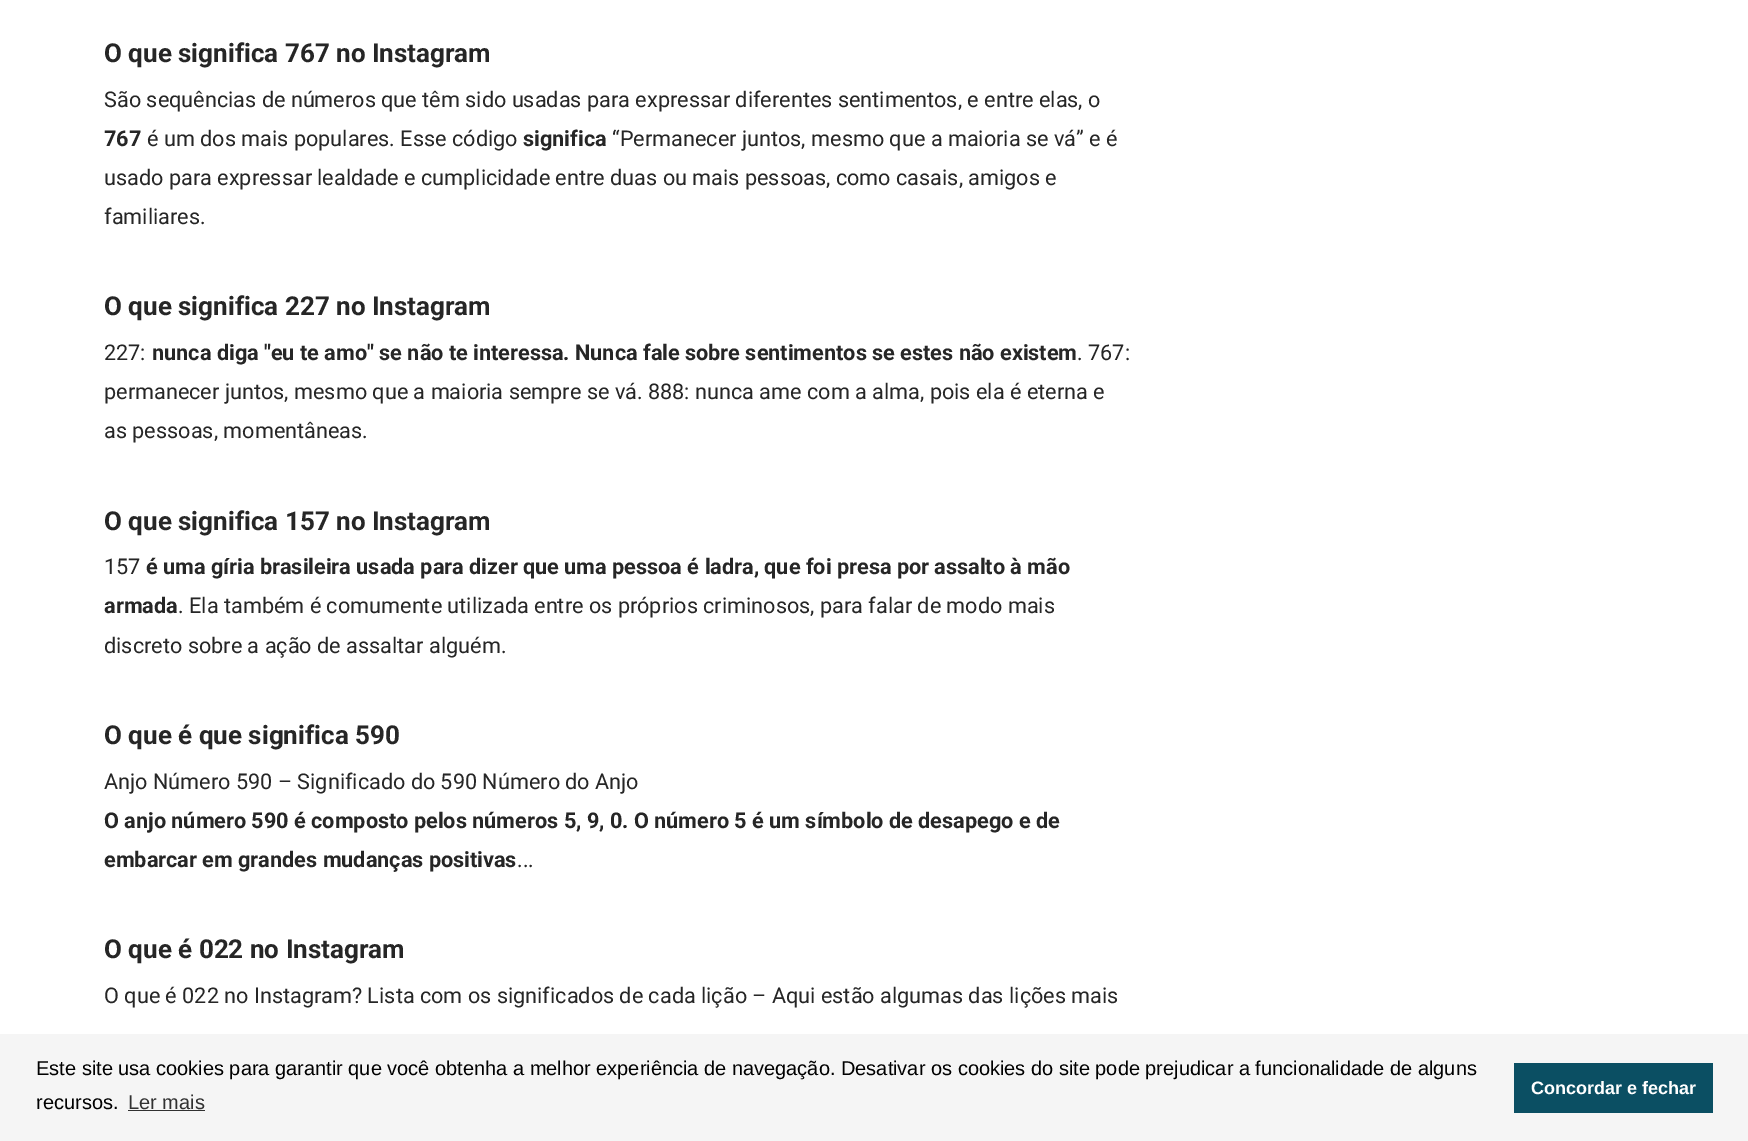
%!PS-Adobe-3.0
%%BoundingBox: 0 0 1748 1141
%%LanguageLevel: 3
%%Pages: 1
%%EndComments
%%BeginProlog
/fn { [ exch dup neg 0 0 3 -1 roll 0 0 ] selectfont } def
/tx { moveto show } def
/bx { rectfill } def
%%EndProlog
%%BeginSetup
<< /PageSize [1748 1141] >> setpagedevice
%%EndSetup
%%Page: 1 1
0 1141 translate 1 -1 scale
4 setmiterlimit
1 setgray
0 0 1748 1141 bx
/Roboto-Bold 26 fn
0.149 setgray
(O que significa 767 no Instagram) 104 62 tx
/Roboto-Regular 21.65 fn
(São sequências de números que têm sido usadas para expressar diferentes sentimentos, e entre elas, o) 104 107 tx
/Roboto-Bold 21.65 fn
(767) 104 146 tx
/Roboto-Regular 21.65 fn
(é um dos mais populares. Esse código) 147 146 tx
/Roboto-Bold 21.65 fn
(significa) 523 146 tx
/Roboto-Regular 21.65 fn
(“Permanecer juntos, mesmo que a maioria se vá” e é) 612 146 tx
(usado para expressar lealdade e cumplicidade entre duas ou mais pessoas, como casais, amigos e) 104 185 tx
(familiares.) 104 224 tx
/Roboto-Bold 26 fn
(O que significa 227 no Instagram) 104 315 tx
/Roboto-Regular 21.65 fn
(227:) 104 360 tx
/Roboto-Bold 21.65 fn
(nunca diga "eu te amo" se não te interessa. Nunca fale sobre sentimentos se estes não existem) 152 360 tx
/Roboto-Regular 21.65 fn
(. 767:) 1077 360 tx
(permanecer juntos, mesmo que a maioria sempre se vá. 888: nunca ame com a alma, pois ela é eterna e) 104 399 tx
(as pessoas, momentâneas.) 104 438 tx
/Roboto-Bold 26 fn
(O que significa 157 no Instagram) 104 530 tx
/Roboto-Regular 21.65 fn
(157) 104 574 tx
/Roboto-Bold 21.65 fn
(é uma gíria brasileira usada para dizer que uma pessoa é ladra, que foi presa por assalto à mão) 146 574 tx
(armada) 104 613 tx
/Roboto-Regular 21.65 fn
(. Ela também é comumente utilizada entre os próprios criminosos, para falar de modo mais) 178 613 tx
(discreto sobre a ação de assaltar alguém.) 104 653 tx
/Roboto-Bold 26 fn
(O que é que significa 590) 104 744 tx
/Roboto-Regular 21.65 fn
(Anjo Número 590 – Significado do 590 Número do Anjo) 104 789 tx
/Roboto-Bold 21.65 fn
(O anjo número 590 é composto pelos números 5, 9, 0. O número 5 é um símbolo de desapego e de) 104 828 tx
(embarcar em grandes mudanças positivas) 104 867 tx
/Roboto-Regular 21.65 fn
(...) 517 867 tx
/Roboto-Bold 26 fn
(O que é 022 no Instagram) 104 958 tx
/Roboto-Regular 21.65 fn
(O que é 022 no Instagram? Lista com os significados de cada lição – Aqui estão algumas das lições mais) 104 1003 tx
0.961 setgray
0 1034 1748 107 bx
/LiberationSans-Regular 20 fn
0 setgray
(Este site usa cookies para garantir que você obtenha a melhor experiência de navegação. Desativar os cookies do site pode prejudicar a funcionalidade de alguns) 36 1075 tx
(recursos.) 36 1109 tx
0.192 setgray
(Ler mais) 128 1109 tx
128 1110 77 1 bx
0.043 0.31 0.388 setrgbcolor
1514 1063 199 50 bx
/LiberationSans-Bold 18 fn
1 setgray
(Concordar e fechar) 1531 1094 tx
showpage
%%EOF
